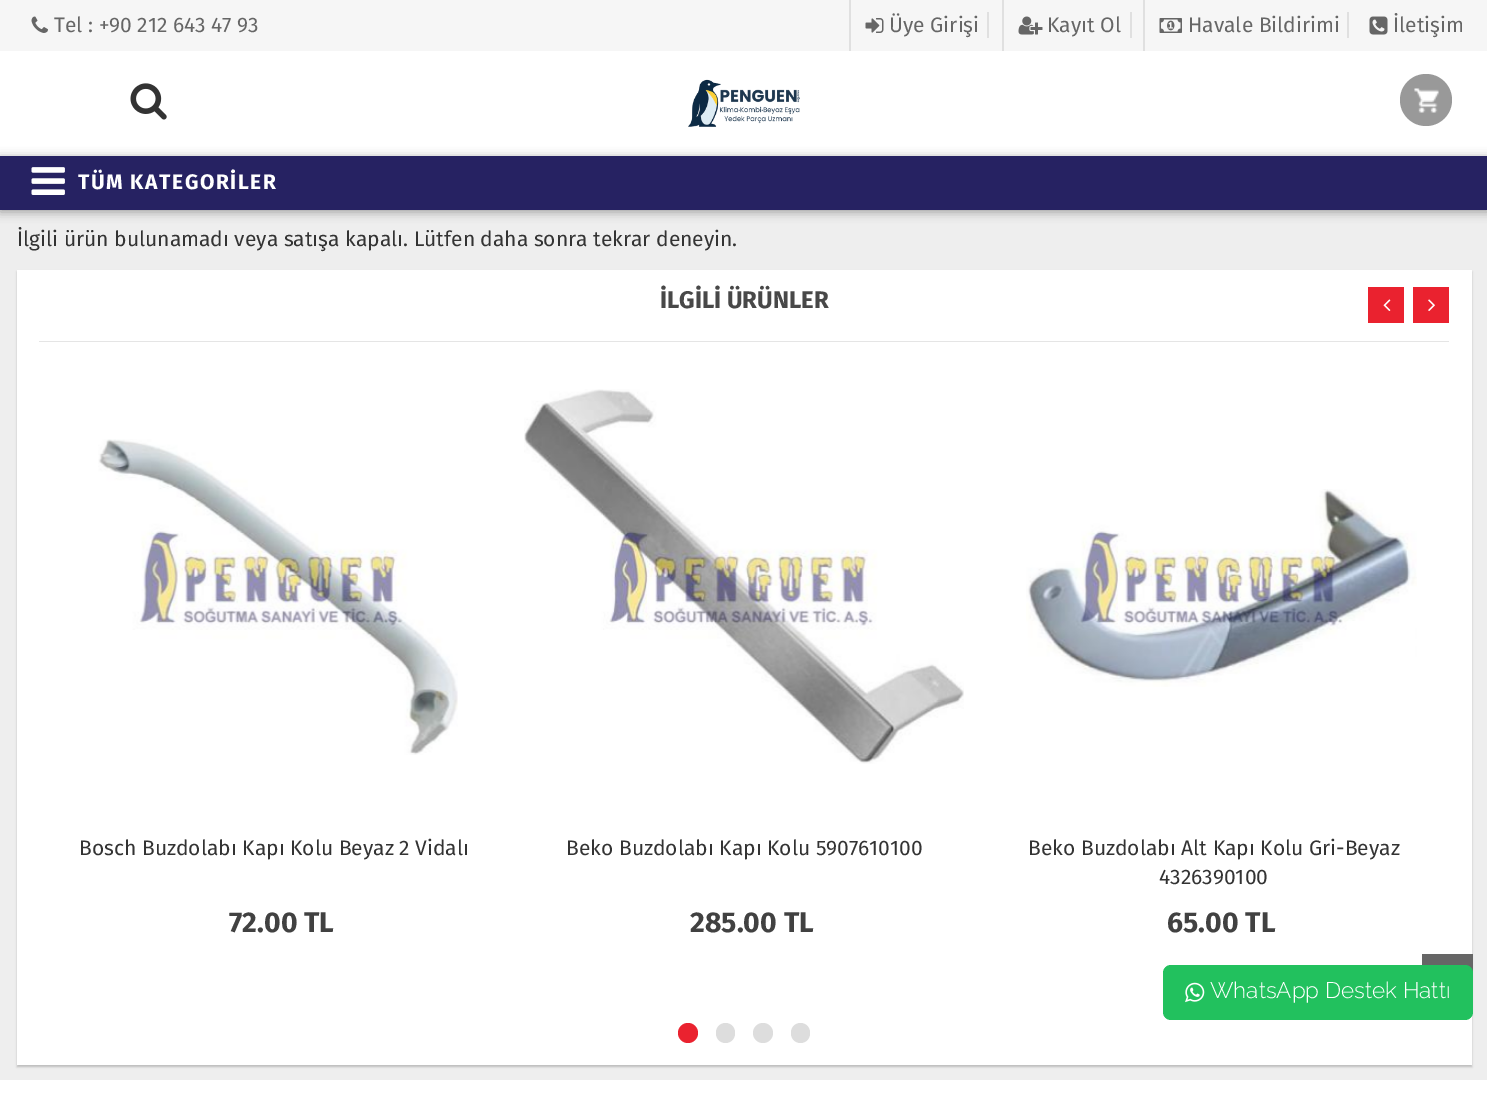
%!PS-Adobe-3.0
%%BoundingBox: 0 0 1487 1109
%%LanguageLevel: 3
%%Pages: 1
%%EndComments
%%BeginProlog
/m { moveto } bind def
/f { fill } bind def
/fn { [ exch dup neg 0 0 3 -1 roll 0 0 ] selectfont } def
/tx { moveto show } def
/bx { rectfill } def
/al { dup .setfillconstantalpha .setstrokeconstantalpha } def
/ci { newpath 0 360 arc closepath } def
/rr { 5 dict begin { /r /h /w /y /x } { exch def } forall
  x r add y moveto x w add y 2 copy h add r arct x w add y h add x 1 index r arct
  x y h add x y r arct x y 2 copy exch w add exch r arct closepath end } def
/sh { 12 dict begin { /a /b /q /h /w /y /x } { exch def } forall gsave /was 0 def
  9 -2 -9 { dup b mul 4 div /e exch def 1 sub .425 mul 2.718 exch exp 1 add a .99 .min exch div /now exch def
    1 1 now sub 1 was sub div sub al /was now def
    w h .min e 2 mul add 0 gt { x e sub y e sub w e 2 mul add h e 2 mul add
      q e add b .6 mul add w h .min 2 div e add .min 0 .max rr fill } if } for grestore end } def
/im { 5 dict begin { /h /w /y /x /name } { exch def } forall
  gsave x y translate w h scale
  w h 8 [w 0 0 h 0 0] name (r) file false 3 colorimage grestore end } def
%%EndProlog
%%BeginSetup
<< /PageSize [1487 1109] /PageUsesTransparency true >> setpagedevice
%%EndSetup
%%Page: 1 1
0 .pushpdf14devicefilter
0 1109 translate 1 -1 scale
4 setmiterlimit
0.933 setgray
0 0 1487 1109 bx
1 setgray
0 51 1487 105 bx
0.965 setgray
0 0 1487 51 bx
(image0.raw) 31 16 17 17 im
/FiraSans-Regular 21 fn
0.4 setgray
(Tel : +90 212 643 47 93) 54 32 tx
0.878 setgray
849 0 2 51 bx
987 12 2 26 bx
(image1.raw) 865 18 19 15 im
0.4 setgray
(Üye Girişi) 889 32 tx
0.878 setgray
1002 0 2 51 bx
1130 12 2 26 bx
(image2.raw) 1018 16 25 19 im
0.4 setgray
(Kayıt Ol) 1047 32 tx
0.878 setgray
1143 0 2 51 bx
1347 12 2 26 bx
(image3.raw) 1159 18 23 15 im
0.4 setgray
(Havale Bildirimi) 1188 32 tx
(image4.raw) 1369 16 19 19 im
(İletişim) 1393 32 tx
(image5.raw) 130 83 37 37 im
(image6.raw) 688 79 112 48 im
0.6 setgray
1426 100 26 ci f
(image7.raw) 1414 88 25 25 im
0.612 setgray
0 158 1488 54 0 5 1 sh
0.149 0.133 0.384 setrgbcolor
0 156 1487 54 bx
(image8.raw) 31 167 34 28 im
/FiraSans-Bold 21 fn
1 setgray
78 189 m 1.5 0 (TÜM KATEGORİLER) ashow
/FiraSans-Regular 21 fn
0.2 setgray
(İlgili ürün bulunamadı veya satışa kapalı. Lütfen daha sonra tekrar deneyin.) 17 246 tx
0 setgray
17 272 1455 795 0 1 0.2 sh
1 setgray
17 270 1455 795 bx
0.898 setgray
39 341 1410 1 bx
/FiraSans-Bold 24 fn
0.282 setgray
(İLGİLİ ÜRÜNLER) 660 308 tx
0.918 0.133 0.184 setrgbcolor
1368 287 36 36 bx
(image9.raw) 1383 299 8 12 im
1413 287 36 36 bx
(image10.raw) 1428 299 7 12 im
688 1033 10 ci f
0.867 setgray
716 1023 19 20 9.5 rr f
763 1033 10 ci f
791 1023 19 20 9.5 rr f
(image11.raw) 98 439 360 316 im
/FiraSans-Regular 21 fn
0.2 setgray
(Bosch Buzdolabı Kapı Kolu Beyaz 2 Vidalı) 79 855 tx
/FiraSans-Bold 28.5 fn
0.255 setgray
(72.00 TL) 229 932 tx
(image12.raw) 524 389 440 375 im
/FiraSans-Regular 21 fn
0.2 setgray
(Beko Buzdolabı Kapı Kolu 5907610100) 566 855 tx
/FiraSans-Bold 28.5 fn
0.255 setgray
(285.00 TL) 690 932 tx
(image13.raw) 1026 489 391 198 im
/FiraSans-Regular 21 fn
0.2 setgray
(Beko Buzdolabı Alt Kapı Kolu Gri-Beyaz) 1028 855 tx
(4326390100) 1159 884 tx
/FiraSans-Bold 28.5 fn
0.255 setgray
(65.00 TL) 1167 932 tx
0.4 setgray
1422 954 51 19 bx
0.133 0.757 0.369 setrgbcolor
1163 965 310 55 8 rr f
(image14.raw) 1185 982 20 21 im
/Raleway-Light 22.5 fn
1 setgray
(WhatsApp Destek Hattı) 1210 998 tx
0 1080 1487 29 bx
.poppdf14devicefilter showpage
%%EOF
